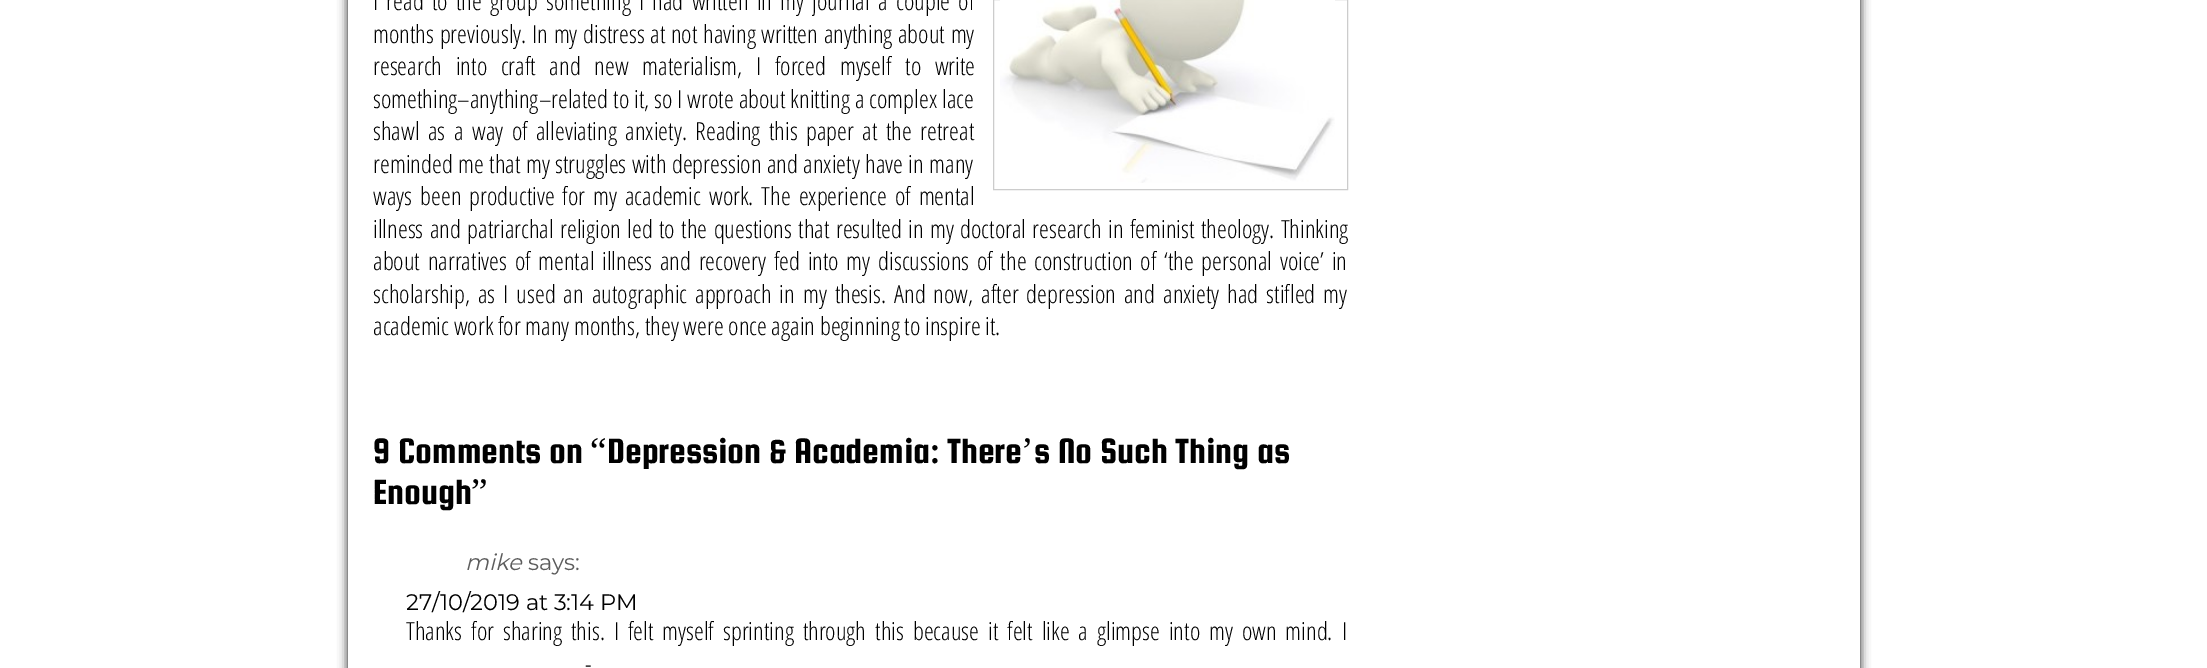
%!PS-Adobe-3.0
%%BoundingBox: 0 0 2207 668
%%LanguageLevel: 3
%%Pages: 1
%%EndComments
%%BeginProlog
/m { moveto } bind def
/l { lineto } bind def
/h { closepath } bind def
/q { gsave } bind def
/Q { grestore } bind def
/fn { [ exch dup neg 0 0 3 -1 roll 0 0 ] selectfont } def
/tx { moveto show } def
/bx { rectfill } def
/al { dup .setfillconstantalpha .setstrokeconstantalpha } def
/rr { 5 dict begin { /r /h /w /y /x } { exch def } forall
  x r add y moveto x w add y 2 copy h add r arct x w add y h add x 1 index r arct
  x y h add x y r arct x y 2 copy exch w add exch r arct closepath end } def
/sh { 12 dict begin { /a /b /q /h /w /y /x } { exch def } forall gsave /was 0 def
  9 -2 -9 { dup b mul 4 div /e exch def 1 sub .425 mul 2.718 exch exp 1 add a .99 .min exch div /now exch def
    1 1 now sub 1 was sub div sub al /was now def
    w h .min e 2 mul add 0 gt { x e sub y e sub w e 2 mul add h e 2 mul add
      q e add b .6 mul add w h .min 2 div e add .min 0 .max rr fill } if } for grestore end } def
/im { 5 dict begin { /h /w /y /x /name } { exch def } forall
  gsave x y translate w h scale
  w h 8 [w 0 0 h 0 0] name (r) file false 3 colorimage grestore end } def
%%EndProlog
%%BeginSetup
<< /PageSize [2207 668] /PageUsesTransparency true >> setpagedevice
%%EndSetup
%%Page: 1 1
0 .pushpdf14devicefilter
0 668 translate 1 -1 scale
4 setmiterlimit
1 setgray
0 0 2207 668 bx
q
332 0 m 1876 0 l 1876 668 l 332 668 l h 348 -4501 m 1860 -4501 l 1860 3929 l 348 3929 l h eoclip newpath
0.067 setgray
348 -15 1512 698 0 5 1 sh
Q
/OpenSansCondensed-Light 25 fn
0 setgray
373 10 m 3.6 0 32 (I read to the group something I had written in my journal a couple of) widthshow
0.8 setgray
993.5 -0.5 354 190 rectstroke
(image0.raw) 1000 0 335 183 im
0 setgray
373 43 m 1 0 32 (months previously. In my distress at not having written anything about my) widthshow
373 75 m 9 0 32 (research into craft and new materialism, I forced myself to write) widthshow
373 108 m 0.25 0 32 (something–anything–related to it, so I wrote about knitting a complex lace) widthshow
373 140 m 3.75 0 32 (shawl as a way of alleviating anxiety. Reading this paper at the retreat) widthshow
373 173 m 0.75 0 32 (reminded me that my struggles with depression and anxiety have in many) widthshow
373 205 m 3.25 0 32 (ways been productive for my academic work. The experience of mental) widthshow
373 238 m 1.7 0 32 (illness and patriarchal religion led to the questions that resulted in my doctoral research in feminist theology. Thinking) widthshow
373 270 m 3 0 32 (about narratives of mental illness and recovery fed into my discussions of the construction of ‘the personal voice’ in) widthshow
373 303 m 3.25 0 32 (scholarship, as I used an autographic approach in my thesis. And now, after depression and anxiety had stifled my) widthshow
(academic work for many months, they were once again beginning to inspire it.) 373 335 tx
/SquadaOne-Regular 37.5 fn
(9 Comments on) 373 463 tx
/LiberationSerif-Regular 37.5 fn
(“) 590 463 tx
/SquadaOne-Regular 37.5 fn
(Depression & Academia: There) 607 463 tx
/LiberationSerif-Regular 37.5 fn
(’) 1021 463 tx
/SquadaOne-Regular 37.5 fn
(s No Such Thing as) 1034 463 tx
(Enough) 373 504 tx
/LiberationSerif-Regular 37.5 fn
(”) 471 504 tx
/Montserrat-Italic 22.5 fn
0.361 setgray
(mike) 465 570 tx
/Montserrat-Regular 22.5 fn
(says:) 528 570 tx
0 setgray
(27/10/2019 at 3:14 PM) 406 610 tx
/OpenSansCondensed-Light 25 fn
406 640 m 4.25 0 32 (Thanks for sharing this. I felt myself sprinting through this because it felt like a glimpse into my own mind. I) widthshow
585 673 m 3 0 32 (-) widthshow
.poppdf14devicefilter showpage
%%EOF
